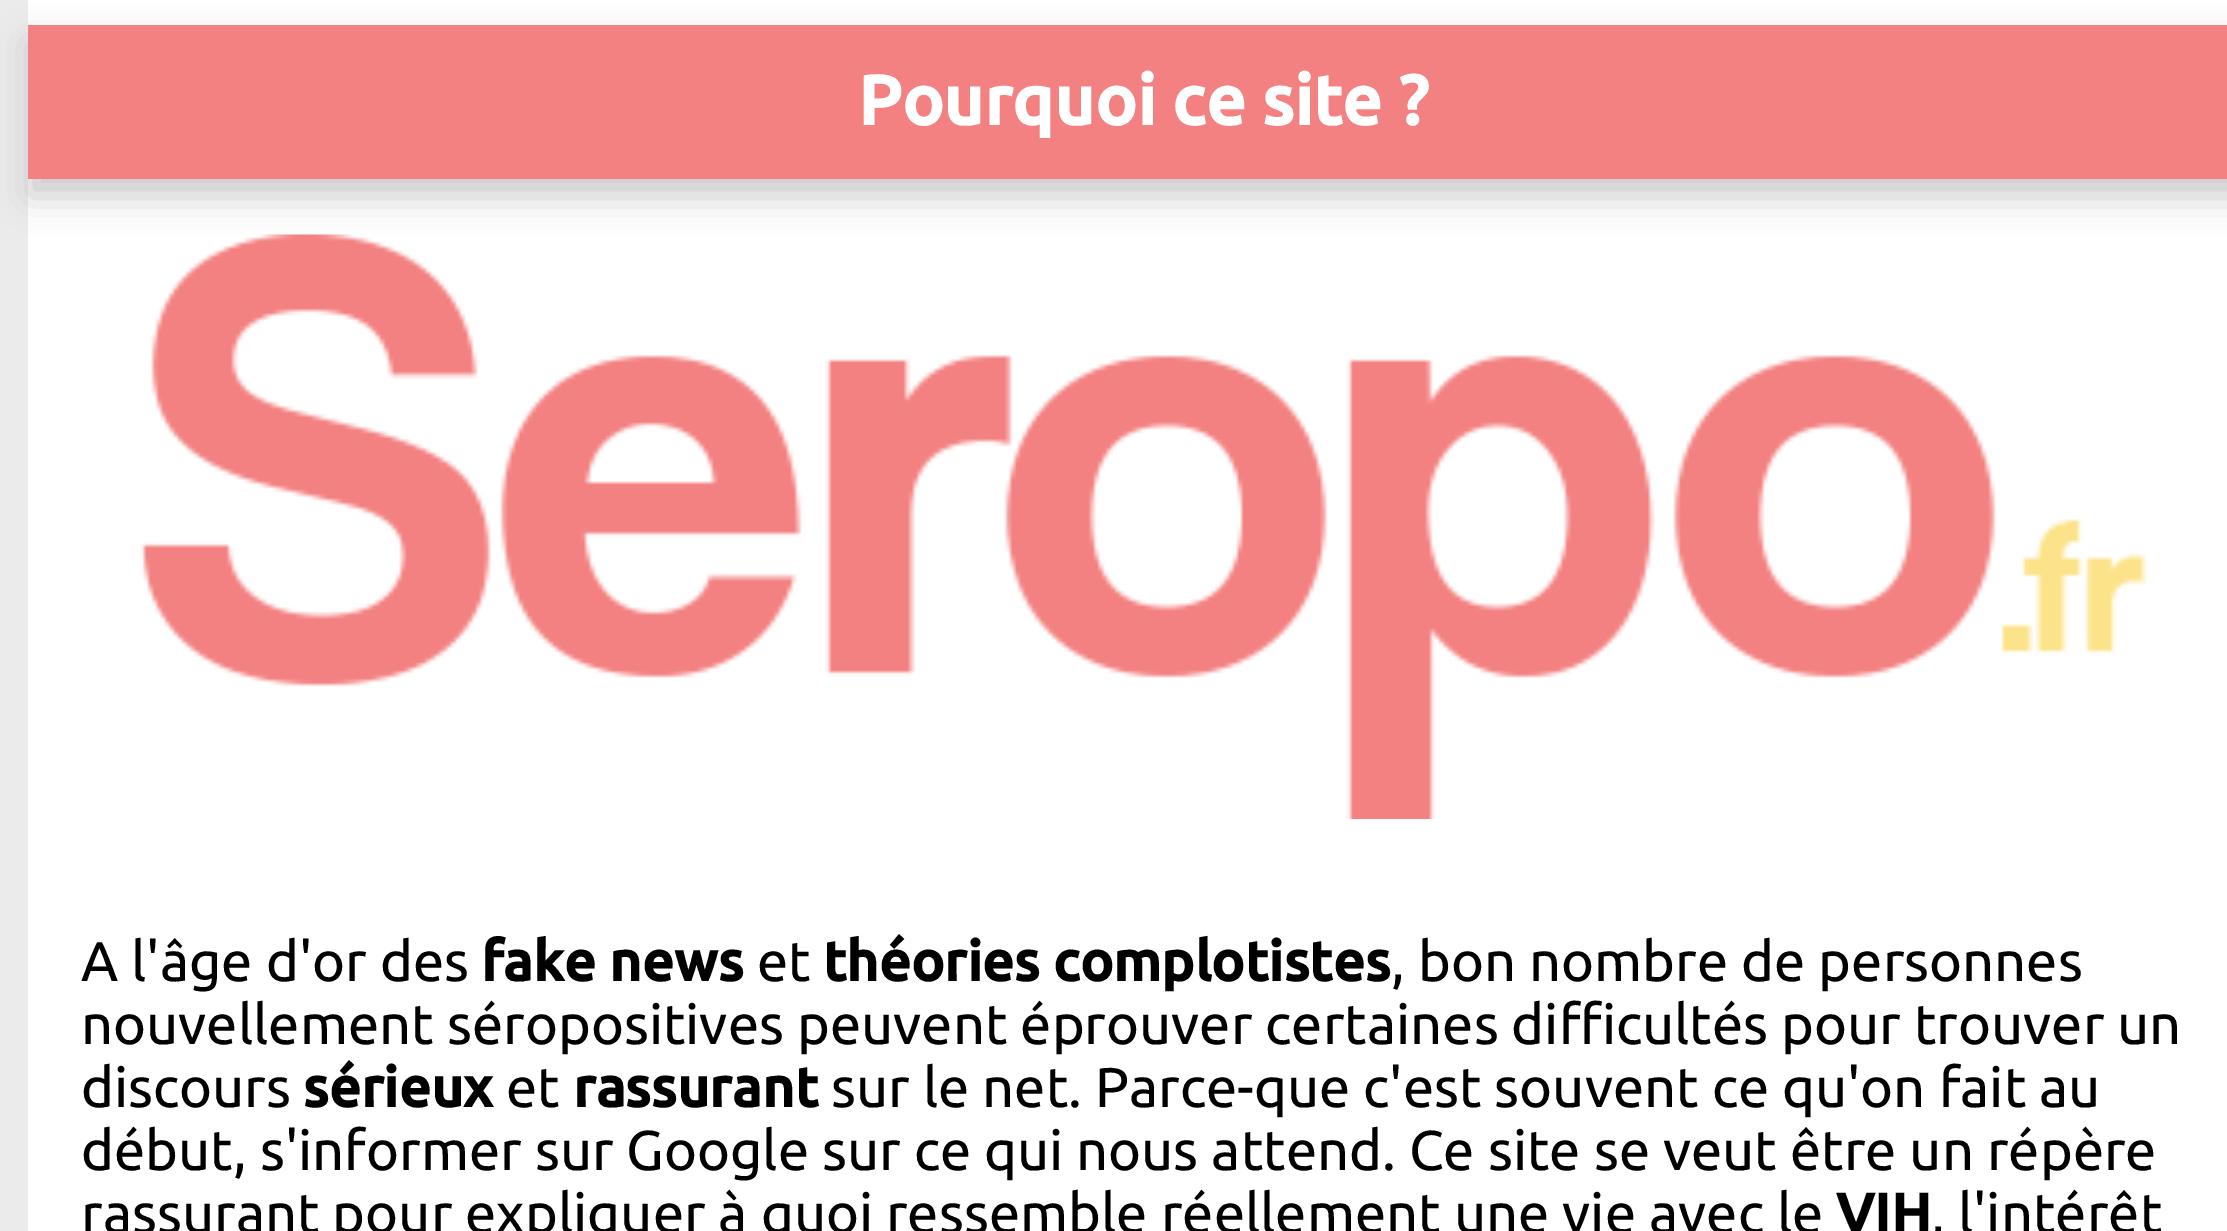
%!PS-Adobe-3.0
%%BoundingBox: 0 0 2227 1231
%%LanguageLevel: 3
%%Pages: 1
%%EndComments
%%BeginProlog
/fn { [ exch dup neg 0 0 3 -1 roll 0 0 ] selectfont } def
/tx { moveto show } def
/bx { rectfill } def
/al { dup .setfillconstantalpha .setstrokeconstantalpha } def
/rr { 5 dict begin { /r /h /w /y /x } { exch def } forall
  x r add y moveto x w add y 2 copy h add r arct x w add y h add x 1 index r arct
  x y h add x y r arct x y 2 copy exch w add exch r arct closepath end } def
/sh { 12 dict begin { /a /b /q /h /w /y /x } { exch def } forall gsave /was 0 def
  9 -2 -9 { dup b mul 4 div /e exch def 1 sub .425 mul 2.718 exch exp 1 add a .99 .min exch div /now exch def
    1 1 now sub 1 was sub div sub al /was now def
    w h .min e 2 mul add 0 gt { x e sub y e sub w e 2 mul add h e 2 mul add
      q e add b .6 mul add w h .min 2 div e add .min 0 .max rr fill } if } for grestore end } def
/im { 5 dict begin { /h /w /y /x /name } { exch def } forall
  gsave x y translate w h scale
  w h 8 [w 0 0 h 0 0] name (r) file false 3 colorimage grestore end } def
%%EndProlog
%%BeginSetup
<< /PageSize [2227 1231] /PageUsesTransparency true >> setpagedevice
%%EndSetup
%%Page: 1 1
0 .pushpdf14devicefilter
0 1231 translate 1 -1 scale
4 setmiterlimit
0.922 setgray
0 0 2227 1231 bx
1 setgray
28 0 2199 25 bx
28 179 2199 1052 bx
0.78 setgray
28 42 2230 154 0 17.5 1 sh
0.953 0.506 0.506 setrgbcolor
28 25 2199 154 bx
/Ubuntu-Bold 70 fn
1 setgray
(Pourquoi ce site ?) 858 125 tx
(image0.raw) 140 234 2006 585 im
/Ubuntu-Regular 56 fn
0 setgray
(A l'âge d'or des) 81 981 tx
/Ubuntu-Bold 56 fn
(fake news) 481 981 tx
/Ubuntu-Regular 56 fn
(et) 757 981 tx
/Ubuntu-Bold 56 fn
(théories complotistes) 823 981 tx
/Ubuntu-Regular 56 fn
(, bon nombre de personnes) 1391 981 tx
(nouvellement séropositives peuvent éprouver certaines difficultés pour trouver un) 81 1044 tx
(discours) 81 1107 tx
/Ubuntu-Bold 56 fn
(sérieux) 303 1107 tx
/Ubuntu-Regular 56 fn
(et) 506 1107 tx
/Ubuntu-Bold 56 fn
(rassurant) 573 1107 tx
/Ubuntu-Regular 56 fn
(sur le net. Parce-que c'est souvent ce qu'on fait au) 831 1107 tx
(début, s'informer sur Google sur ce qui nous attend. Ce site se veut être un répère) 81 1170 tx
(rassurant pour expliquer à quoi ressemble réellement une vie avec le) 81 1233 tx
/Ubuntu-Bold 56 fn
(VIH) 1836 1233 tx
/Ubuntu-Regular 56 fn
(, l'intérêt) 1931 1233 tx
.poppdf14devicefilter showpage
%%EOF
